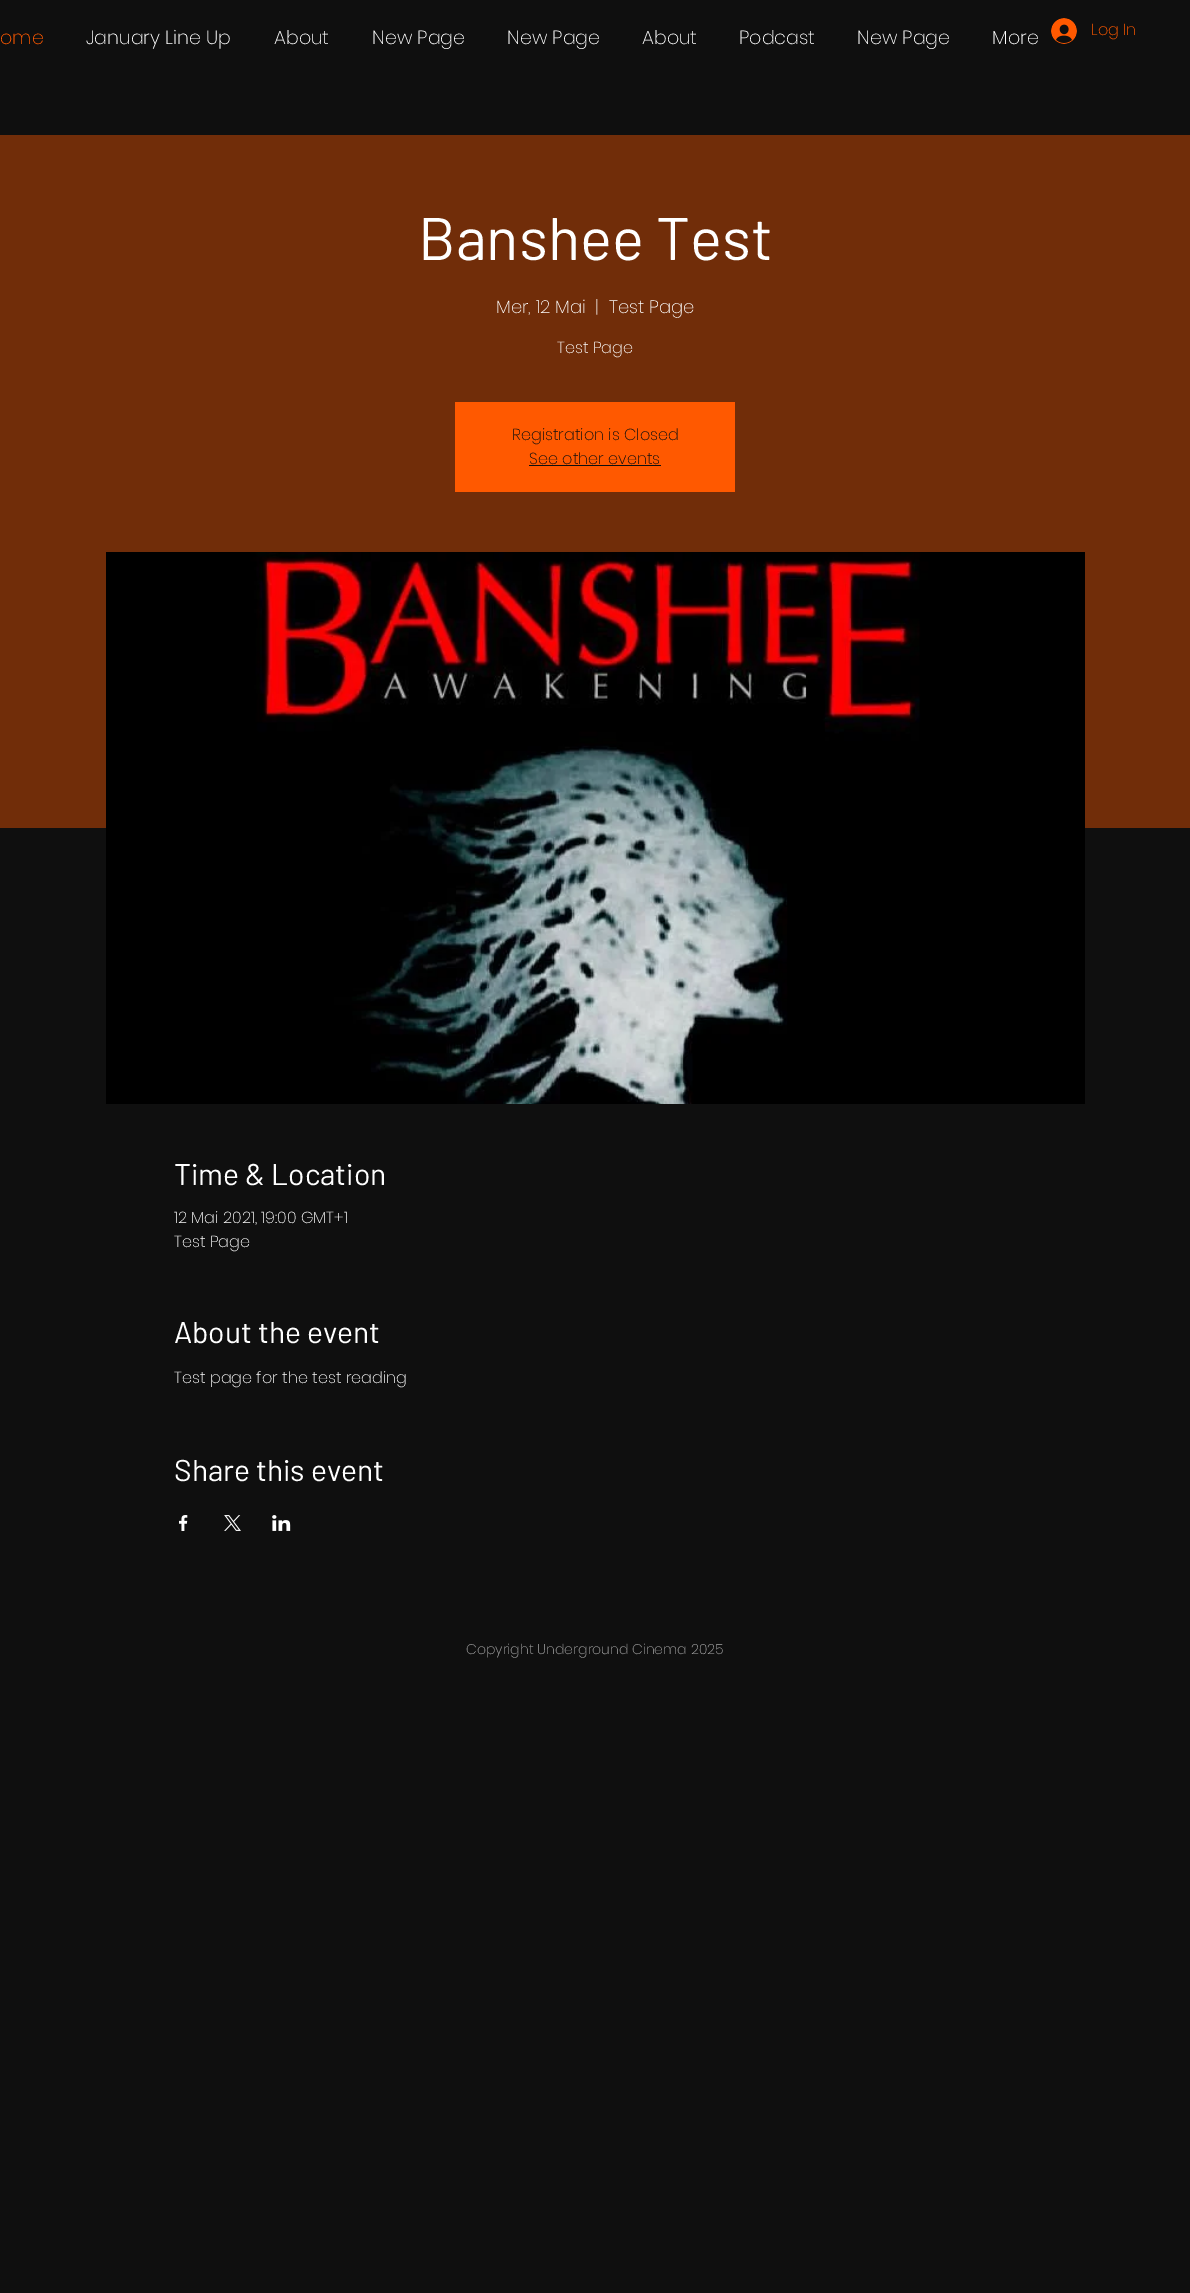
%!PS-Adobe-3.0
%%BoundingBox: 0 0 1190 2293
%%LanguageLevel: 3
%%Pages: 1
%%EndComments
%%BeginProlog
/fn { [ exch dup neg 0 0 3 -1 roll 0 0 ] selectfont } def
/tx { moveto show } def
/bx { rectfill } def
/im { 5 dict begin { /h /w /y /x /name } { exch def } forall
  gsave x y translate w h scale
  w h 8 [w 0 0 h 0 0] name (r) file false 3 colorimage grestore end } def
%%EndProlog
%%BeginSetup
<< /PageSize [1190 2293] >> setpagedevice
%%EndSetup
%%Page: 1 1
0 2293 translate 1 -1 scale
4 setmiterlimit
0.059 setgray
0 0 1190 2293 bx
/Poppins-ExtraLight 19 fn
1 0.349 0 setrgbcolor
(ome) 0 44 tx
1 setgray
(January Line Up) 86 44 tx
(About) 274 44 tx
(New Page) 372 44 tx
(New Page) 507 44 tx
(About) 642 44 tx
(Podcast) 739 44 tx
(New Page) 857 44 tx
(More) 992 44 tx
(image0.raw) 1051 18 26 26 im
/Poppins-ExtraLight 16 fn
1 0.349 0 setrgbcolor
(Log In) 1091 35 tx
0.443 0.176 0.035 setrgbcolor
0 135 1190 693 bx
/Barlow-Regular 60 fn
1 setgray
(Banshee Test) 418 260 tx
/Poppins-ExtraLight 18 fn
(Mer, 12 Mai) 496 313 tx
(|) 595 313 tx
(Test Page) 609 313 tx
/Poppins-ExtraLight 16 fn
(Test Page) 557 353 tx
1 0.349 0 setrgbcolor
455 402 280 90 bx
0.059 setgray
(Registration is Closed) 512 440 tx
(See other events) 529 464 tx
529 465 132 1 bx
(image1.raw) 106 552 979 552 im
/Barlow-Regular 30 fn
1 setgray
(Time & Location) 174 1185 tx
/Poppins-ExtraLight 16 fn
(12 Mai 2021, 19:00 GMT+1) 174 1223 tx
(Test Page) 174 1247 tx
/Barlow-Regular 30 fn
(About the event) 174 1343 tx
/Poppins-ExtraLight 16 fn
(Test page for the test reading) 174 1383 tx
/Barlow-Regular 30 fn
(Share this event) 174 1481 tx
(image2.raw) 179 1515 9 16 im
(image3.raw) 224 1515 17 16 im
(image4.raw) 272 1515 19 16 im
/Poppins-ExtraLight 14 fn
0.659 setgray
(Copyright Underground Cinema 2025) 466 1654 tx
showpage
%%EOF
